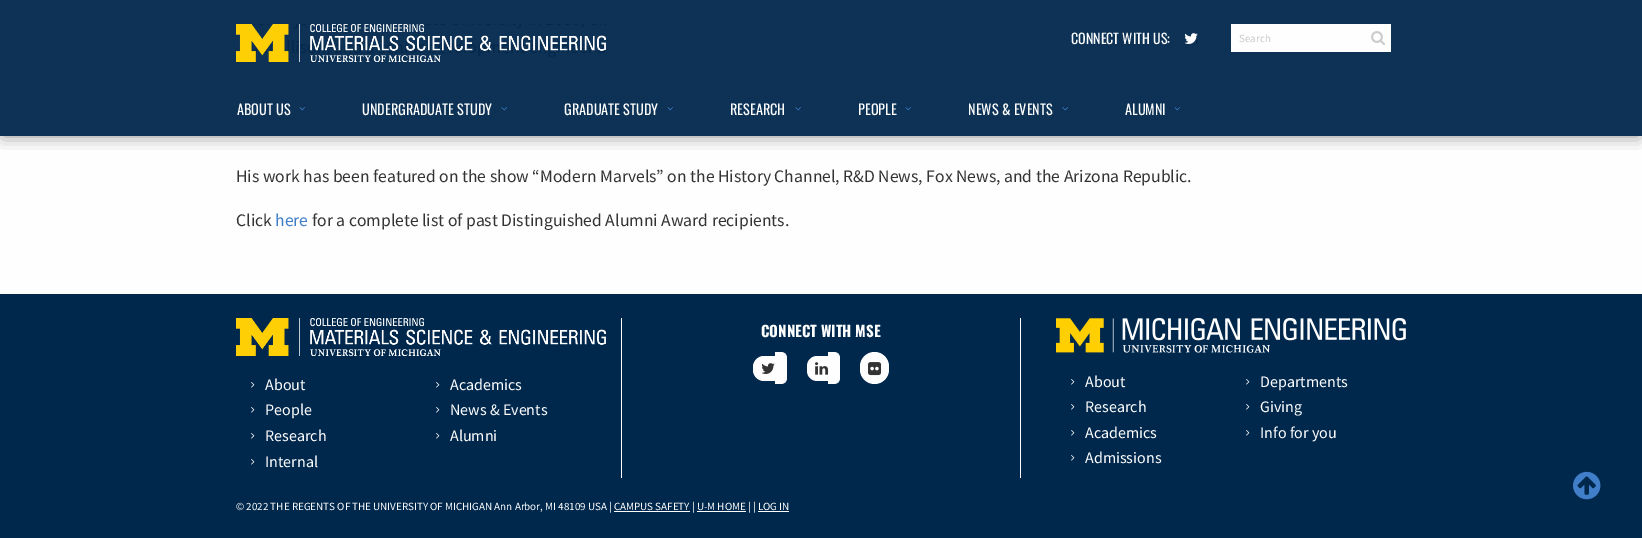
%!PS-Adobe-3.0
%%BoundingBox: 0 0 1642 538
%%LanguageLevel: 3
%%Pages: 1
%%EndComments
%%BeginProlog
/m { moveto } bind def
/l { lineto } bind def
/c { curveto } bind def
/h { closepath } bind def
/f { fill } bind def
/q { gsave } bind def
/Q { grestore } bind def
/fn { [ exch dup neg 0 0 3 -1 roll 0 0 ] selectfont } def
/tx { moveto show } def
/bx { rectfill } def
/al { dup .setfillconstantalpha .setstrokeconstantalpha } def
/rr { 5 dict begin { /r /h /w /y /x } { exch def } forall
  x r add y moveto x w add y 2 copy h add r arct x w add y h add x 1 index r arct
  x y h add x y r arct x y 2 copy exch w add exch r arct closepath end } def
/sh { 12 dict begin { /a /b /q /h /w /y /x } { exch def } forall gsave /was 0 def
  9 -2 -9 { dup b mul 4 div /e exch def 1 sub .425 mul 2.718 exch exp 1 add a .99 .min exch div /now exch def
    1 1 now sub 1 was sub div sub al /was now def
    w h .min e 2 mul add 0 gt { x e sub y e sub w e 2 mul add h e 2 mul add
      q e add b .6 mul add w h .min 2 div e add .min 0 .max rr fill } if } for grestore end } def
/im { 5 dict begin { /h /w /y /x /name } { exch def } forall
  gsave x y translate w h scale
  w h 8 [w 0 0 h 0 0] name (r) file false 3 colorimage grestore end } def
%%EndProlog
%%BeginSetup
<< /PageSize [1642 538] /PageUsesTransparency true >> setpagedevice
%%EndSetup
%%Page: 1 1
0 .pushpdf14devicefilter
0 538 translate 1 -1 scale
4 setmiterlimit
0.996 setgray
0 0 1642 538 bx
q
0 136 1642 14 rectclip
0 setgray
3 6 1636 130 0 8 0.44 sh
Q
0.95 al
0 0.153 0.298 setrgbcolor
0 0 1642 136 bx
1 al
(image0.raw) 236 24 370 38 im
/Oswald-Regular 14 fn
0.996 setgray
(CONNECT WITH US:) 1071 44 tx
(image1.raw) 1184 33 14 11 im
1231 24 160 28 bx
/SourceSansPro-Regular 11 fn
0.792 setgray
(Search) 1239 42 tx
(image2.raw) 1371 31 14 14 im
/Oswald-Regular 14.25 fn
0.996 setgray
(ABOUT US) 237 115 tx
(image3.raw) 299 107 6 4 im
(UNDERGRADUATE STUDY) 362 115 tx
(image4.raw) 501 107 6 4 im
(GRADUATE STUDY) 564 115 tx
(image5.raw) 667 107 6 4 im
(RESEARCH) 730 115 tx
(image6.raw) 795 107 6 4 im
(PEOPLE) 858 115 tx
(image7.raw) 905 107 6 4 im
(NEWS & EVENTS) 968 115 tx
(image8.raw) 1062 107 6 4 im
(ALUMNI) 1125 115 tx
(image9.raw) 1174 107 6 4 im
/SourceSansPro-Regular 17.6 fn
0.2 setgray
(His work has been featured on the show “Modern Marvels” on the History Channel, R&D News, Fox News, and the Arizona Republic.) 236 182 tx
(Click) 236 226 tx
0.251 0.494 0.788 setrgbcolor
(here) 275 226 tx
0.2 setgray
(for a complete list of past Distinguished Alumni Award recipients.) 312 226 tx
0 0.153 0.298 setrgbcolor
0 294 1642 244 bx
0.996 setgray
1020 318 1 160 bx
621 318 1 160 bx
/Oswald-Bold 15 fn
(CONNECT WITH MSE) 761 337 tx
764 356 m 775 356 l 775 381 l 764 381 l 758 381 753 376 753 370 c 753 367 l 753 361 758 356 764 356 c h f
775 352 m 781 352 l 784.5 352 787 354.5 787 358 c 787 378 l 787 381.5 784.5 384 781 384 c 775 384 l h f
(image10.raw) 761 363 14 11 im
817.5 356 m 828 356 l 828 381 l 817.5 381 l 811.5 381 807 376.5 807 370.5 c 807 366.5 l 807 360.5 811.5 356 817.5 356 c h f
828 352 m 834 352 l 837.5 352 840 354.5 840 358 c 840 378 l 840 381.5 837.5 384 834 384 c 828 384 l h f
(image11.raw) 815 362 14 13 im
860 352 29 32 14.5 rr f
(image12.raw) 868 362 14 14 im
(image13.raw) 236 318 370 38 im
(image14.raw) 251 382 4 6 im
/SourceSansPro-Regular 16 fn
(About) 265 390 tx
(image14.raw) 251 407 4 6 im
(People) 265 415 tx
(image14.raw) 251 433 4 6 im
(Research) 265 441 tx
(image14.raw) 251 459 4 6 im
(Internal) 265 467 tx
(image14.raw) 436 382 4 6 im
(Academics) 450 390 tx
(image14.raw) 436 407 4 6 im
(News & Events) 450 415 tx
(image14.raw) 436 433 4 6 im
(Alumni) 450 441 tx
(image15.raw) 1056 318 350 35 im
(image14.raw) 1071 379 4 6 im
(About) 1085 387 tx
(image14.raw) 1071 404 4 6 im
(Research) 1085 412 tx
(image14.raw) 1071 430 4 6 im
(Academics) 1085 438 tx
(image14.raw) 1071 455 4 6 im
(Admissions) 1085 463 tx
(image14.raw) 1246 379 4 6 im
(Departments) 1260 387 tx
(image14.raw) 1246 404 4 6 im
(Giving) 1260 412 tx
(image14.raw) 1246 430 4 6 im
(Info for you) 1260 438 tx
/SourceSansPro-Regular 11 fn
(© 2022 THE REGENTS OF THE UNIVERSITY OF MICHIGAN Ann Arbor, MI 48109 USA | CAMPUS SAFETY | U-M HOME | | LOG IN) 236 510 tx
614 511 76 1 bx
697 511 49 1 bx
758 511 31 1 bx
(image16.raw) 1573 471 28 29 im
.poppdf14devicefilter showpage
%%EOF
